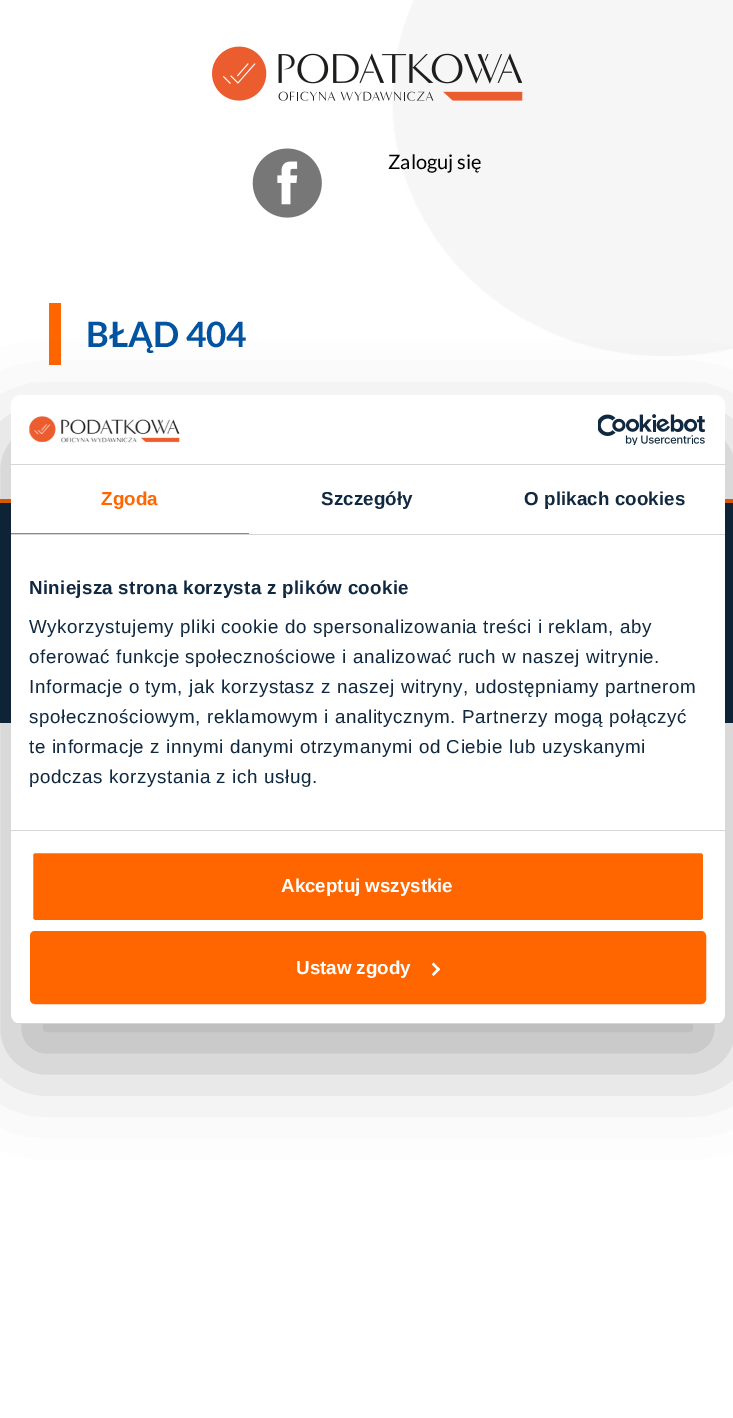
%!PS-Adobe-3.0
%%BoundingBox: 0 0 733 1418
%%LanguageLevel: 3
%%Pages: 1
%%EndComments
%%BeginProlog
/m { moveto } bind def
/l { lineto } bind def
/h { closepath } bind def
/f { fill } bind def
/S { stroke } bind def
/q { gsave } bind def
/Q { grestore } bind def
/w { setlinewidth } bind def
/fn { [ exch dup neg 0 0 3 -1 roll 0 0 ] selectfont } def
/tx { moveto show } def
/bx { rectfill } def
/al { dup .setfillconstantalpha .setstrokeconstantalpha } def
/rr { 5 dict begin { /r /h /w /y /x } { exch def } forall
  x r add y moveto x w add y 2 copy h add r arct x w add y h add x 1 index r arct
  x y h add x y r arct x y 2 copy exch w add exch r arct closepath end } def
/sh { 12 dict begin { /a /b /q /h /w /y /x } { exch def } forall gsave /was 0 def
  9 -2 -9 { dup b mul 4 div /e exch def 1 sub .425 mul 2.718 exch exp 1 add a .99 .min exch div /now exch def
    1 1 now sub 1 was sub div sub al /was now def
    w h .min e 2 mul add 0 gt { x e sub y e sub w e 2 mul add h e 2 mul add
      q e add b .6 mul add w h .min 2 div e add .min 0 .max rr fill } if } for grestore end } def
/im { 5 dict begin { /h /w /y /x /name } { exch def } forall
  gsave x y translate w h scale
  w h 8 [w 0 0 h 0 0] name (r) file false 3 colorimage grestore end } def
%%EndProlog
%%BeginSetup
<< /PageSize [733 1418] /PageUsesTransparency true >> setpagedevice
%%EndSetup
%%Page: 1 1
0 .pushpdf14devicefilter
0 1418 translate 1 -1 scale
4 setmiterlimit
1 setgray
0 0 733 1418 bx
(image0.raw) 392 0 341 356 im
(image1.raw) 212 46 311 55 im
(image2.raw) 252 148 70 70 im
/Lato-Regular 20 fn
0 setgray
(Zaloguj się) 388 169 tx
1 0.4 0 setrgbcolor
49 303 12 62 bx
/Lato-Bold 35 fn
0.008 0.329 0.627 setrgbcolor
(BŁĄD 404) 86 347 tx
0.063 0.161 0.251 setrgbcolor
0 503 733 220 bx
1 0.4 0 setrgbcolor
0 499 733 4 bx
0 setgray
11 435 714 629 10 42.5 0.3 sh
1 setgray
11 395 714 629 10 rr f
0.839 setgray
11 464 714 1 bx
(image3.raw) 29 416 151 27 im
(image4.raw) 598 414 108 31 im
11 534 714 1 bx
1 0.4 0 setrgbcolor
11 533 238 1 bx
/LiberationSans-Bold 18.75 fn
101 505 m 0.1 0 (Zgoda) ashow
0.063 0.161 0.251 setrgbcolor
321 505 m 0.1 0 (Szczegóły) ashow
524 505 m 0.1 0 (O plikach cookies) ashow
0.839 setgray
11 830 714 1 bx
0.063 0.161 0.251 setrgbcolor
29 594 m 0.3 0 (Niniejsza strona korzysta z plików cookie) ashow
/LiberationSans-Regular 18.75 fn
29 633 m 0.62 0 (Wykorzystujemy pliki cookie do spersonalizowania treści i reklam, aby) ashow
29 663 m 0.62 0 (oferować funkcje społecznościowe i analizować ruch w naszej witrynie.) ashow
29 693 m 0.62 0 (Informacje o tym, jak korzystasz z naszej witryny, udostępniamy partnerom) ashow
29 723 m 0.62 0 (społecznościowym, reklamowym i analitycznym. Partnerzy mogą połączyć) ashow
29 753 m 0.62 0 (te informacje z innymi danymi otrzymanymi od Ciebie lub uzyskanymi) ashow
29 783 m 0.62 0 (podczas korzystania z ich usług.) ashow
q
11 395 714 629 10 rr clip newpath
0.839 setgray
11 1023 714 1 bx
Q
1 0.4 0 setrgbcolor
31.5 851.5 673 70 3.5 rr q f Q
1 setgray
3 w
S
/LiberationSans-Bold 18.75 fn
(Akceptuj wszystkie) 281 892 tx
1 0.4 0 setrgbcolor
31.5 932.5 673 70 3.5 rr q f Q
S
1 setgray
(Ustaw zgody) 296 974 tx
433.5 962.5 m 440 969.5 l 438.5 971 l 432 964.5 l h f
438.5 967.5 m 440 969.5 l 433.5 976 l 432 974 l h f
.poppdf14devicefilter showpage
%%EOF
